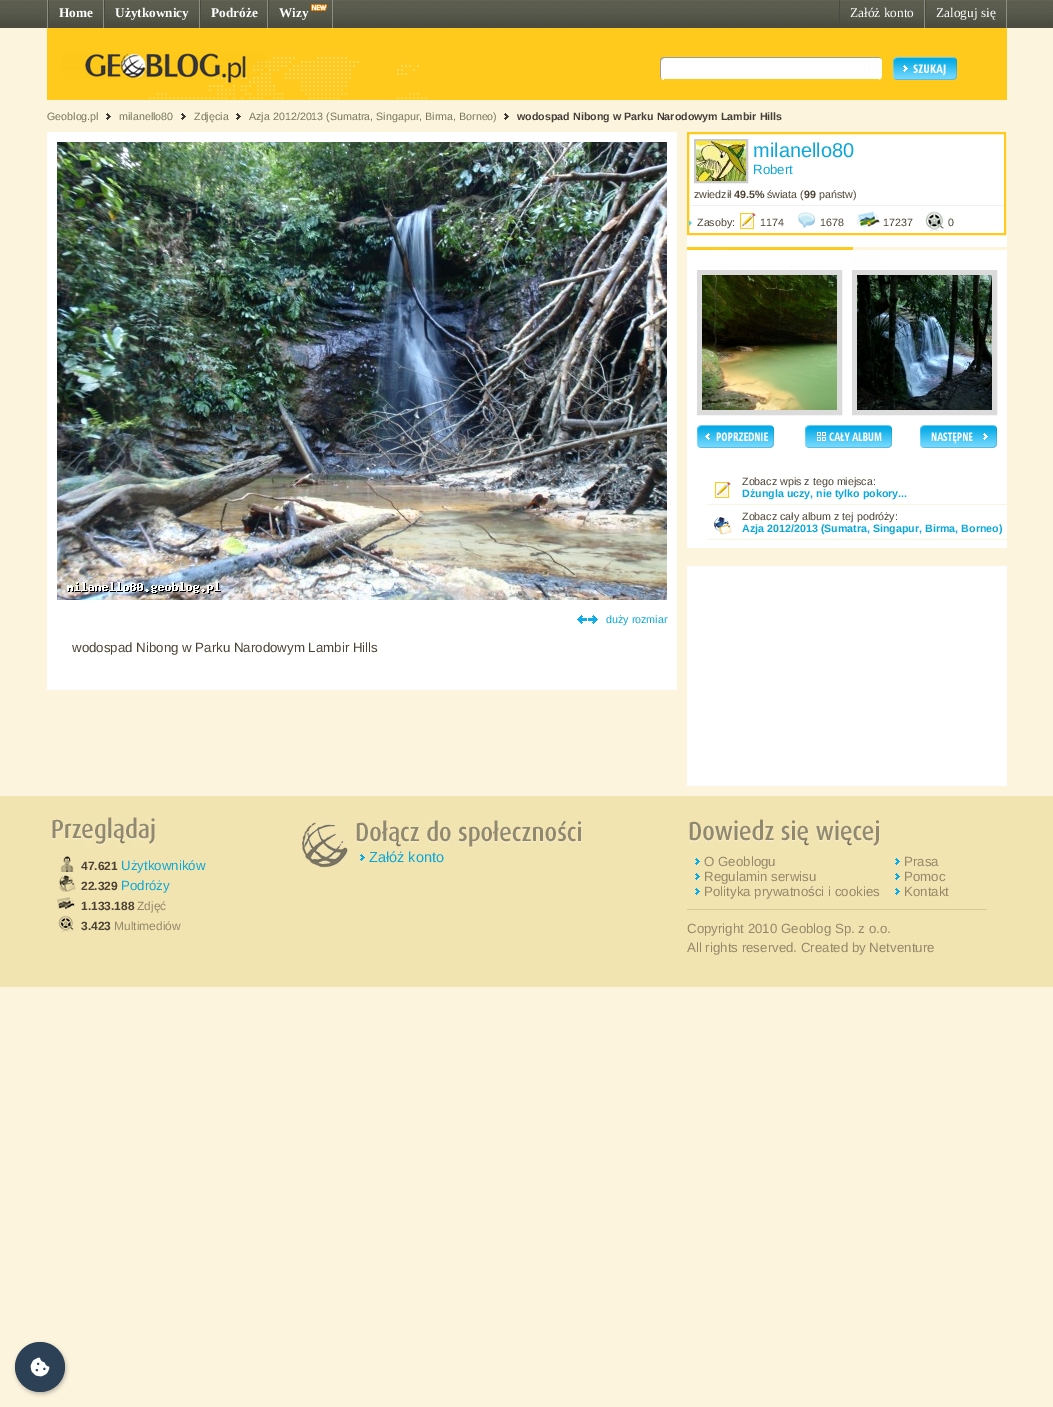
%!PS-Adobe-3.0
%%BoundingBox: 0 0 1053 1407
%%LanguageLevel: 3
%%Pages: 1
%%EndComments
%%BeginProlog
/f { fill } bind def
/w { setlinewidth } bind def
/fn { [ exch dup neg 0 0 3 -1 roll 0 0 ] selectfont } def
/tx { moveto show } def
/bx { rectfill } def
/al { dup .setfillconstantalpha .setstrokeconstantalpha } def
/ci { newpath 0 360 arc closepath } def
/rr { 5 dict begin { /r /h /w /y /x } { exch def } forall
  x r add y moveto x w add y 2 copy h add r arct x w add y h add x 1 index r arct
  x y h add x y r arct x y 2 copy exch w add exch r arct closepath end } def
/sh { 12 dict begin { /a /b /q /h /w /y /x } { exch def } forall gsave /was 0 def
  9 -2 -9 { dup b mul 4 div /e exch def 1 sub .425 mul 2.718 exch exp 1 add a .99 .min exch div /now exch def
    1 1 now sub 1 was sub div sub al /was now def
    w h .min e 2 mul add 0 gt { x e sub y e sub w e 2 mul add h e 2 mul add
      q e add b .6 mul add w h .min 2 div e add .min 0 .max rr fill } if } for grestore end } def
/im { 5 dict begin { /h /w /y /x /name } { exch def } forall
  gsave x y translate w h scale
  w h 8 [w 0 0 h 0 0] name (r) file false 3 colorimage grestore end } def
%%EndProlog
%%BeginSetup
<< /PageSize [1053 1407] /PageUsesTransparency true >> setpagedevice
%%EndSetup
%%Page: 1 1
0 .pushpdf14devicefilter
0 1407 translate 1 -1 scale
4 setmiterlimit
0.988 0.957 0.867 setrgbcolor
0 0 1053 1407 bx
(image0.raw) 0 0 1053 28 im
0.549 0.553 0.514 setrgbcolor
47 0 1 28 bx
103 0 1 28 bx
0.286 0.29 0.255 setrgbcolor
48 0 1 28 bx
/LiberationSerif-Bold 13.3 fn
1 setgray
(Home) 59 17 tx
0.549 0.553 0.514 setrgbcolor
199 0 1 28 bx
0.286 0.29 0.255 setrgbcolor
104 0 1 28 bx
1 setgray
(Użytkownicy) 115 17 tx
0.549 0.553 0.514 setrgbcolor
267 0 1 28 bx
0.286 0.29 0.255 setrgbcolor
200 0 1 28 bx
1 setgray
(Podróże) 211 17 tx
0.549 0.553 0.514 setrgbcolor
332 0 1 28 bx
0.286 0.29 0.255 setrgbcolor
268 0 1 28 bx
1 setgray
(Wizy) 279 17 tx
(image1.raw) 311 4 16 7 im
0.549 0.553 0.514 setrgbcolor
924 0 1 28 bx
0.286 0.29 0.255 setrgbcolor
839 0 1 28 bx
/LiberationSerif-Regular 13.3 fn
1 setgray
(Załóż konto) 850 17 tx
0.549 0.553 0.514 setrgbcolor
1006 0 1 28 bx
0.286 0.29 0.255 setrgbcolor
925 0 1 28 bx
1 setgray
(Zaloguj się) 936 17 tx
1 0.792 0.11 setrgbcolor
47 28 960 72 bx
(image2.raw) 47 52 380 48 im
(image3.raw) 660 56 4 25 im
1 setgray
664 78 215 1 bx
(image4.raw) 664 56 215 22 im
(image5.raw) 879 56 4 25 im
(image6.raw) 893 57 64 23 im
/LiberationSans-Regular 10.7 fn
0.463 0.463 0.361 setrgbcolor
(Geoblog.pl) 47 120 tx
(image7.raw) 106 113 5 7 im
(milanello80) 119 120 tx
(image7.raw) 181 113 5 7 im
(Zdjęcia) 194 120 tx
(image7.raw) 236 113 5 7 im
(Azja 2012/2013 \(Sumatra, Singapur, Birma, Borneo\)) 249 120 tx
(image7.raw) 504 113 5 7 im
/LiberationSans-Bold 10.7 fn
0.267 0.247 0.224 setrgbcolor
(wodospad Nibong w Parku Narodowym Lambir Hills) 517 120 tx
1 setgray
687 132 320 416 bx
1 0.792 0.11 setrgbcolor
2 w
688 133 317 101 rectstroke
0.941 setgray
689 205 315 1 bx
0.792 setgray
695 140 52 42 rectstroke
(image8.raw) 696 141 50 40 im
/LiberationSans-Regular 20 fn
0.043 0.655 0.847 setrgbcolor
(milanello80) 753 157 tx
/LiberationSans-Regular 13.3 fn
(Robert) 753 174 tx
/LiberationSans-Regular 10.7 fn
0.294 0.259 0.2 setrgbcolor
(zwiedził) 694 198 tx
/LiberationSans-Bold 10.7 fn
(49.5%) 734 198 tx
/LiberationSans-Regular 10.7 fn
(świata \() 767 198 tx
/LiberationSans-Bold 10.7 fn
(99) 804 198 tx
/LiberationSans-Regular 10.7 fn
(państw\)) 819 198 tx
(image9.raw) 689 220 3 6 im
(Zasoby:) 697 226 tx
(image10.raw) 740 213 16 16 im
(1174) 760 226 tx
(image11.raw) 798 212 17 16 im
(1678) 820 226 tx
(image12.raw) 857 211 23 17 im
(17237) 883 226 tx
(image13.raw) 925 211 19 20 im
(0) 948 226 tx
(image14.raw) 687 247 320 21 im
0.859 setgray
5 w
699.5 272.5 140 140 rectstroke
(image15.raw) 702 275 135 135 im
854.5 272.5 140 140 rectstroke
(image16.raw) 857 275 135 135 im
(image17.raw) 697 425 77 23 im
(image18.raw) 805 425 87 23 im
(image19.raw) 920 425 77 23 im
0.98 0.961 0.875 setrgbcolor
707 504 300 1 bx
(image10.raw) 715 482 16 16 im
0.294 0.259 0.2 setrgbcolor
(Zobacz wpis z tego miejsca:) 742 485 tx
/LiberationSans-Bold 10.7 fn
0.043 0.655 0.847 setrgbcolor
(Dżungla uczy, nie tylko pokory...) 742 497 tx
0.98 0.961 0.875 setrgbcolor
707 539 300 1 bx
(image20.raw) 714 517 18 18 im
/LiberationSans-Regular 10.7 fn
0.294 0.259 0.2 setrgbcolor
(Zobacz cały album z tej podróży:) 742 520 tx
/LiberationSans-Bold 10.7 fn
0.043 0.655 0.847 setrgbcolor
(Azja 2012/2013 \(Sumatra, Singapur, Birma, Borneo\)) 742 532 tx
1 setgray
687 566 320 220 bx
47 132 630 558 bx
(image21.raw) 57 142 610 458 im
(image22.raw) 577 615 21 9 im
/LiberationSans-Regular 10.7 fn
0.043 0.655 0.847 setrgbcolor
(duży rozmiar) 606 623 tx
/LiberationSans-Regular 13.3 fn
0.294 0.259 0.2 setrgbcolor
(wodospad Nibong w Parku Narodowym Lambir Hills) 72 652 tx
0.949 0.894 0.694 setrgbcolor
0 796 1053 191 bx
(image23.raw) 299 818 52 52 im
(image24.raw) 352 818 234 31 im
(image25.raw) 357 852 9 12 im
/LiberationSans-Regular 14.5 fn
0.043 0.655 0.847 setrgbcolor
(Załóż konto) 369 862 tx
(image26.raw) 51 816 104 32 im
(image27.raw) 58 856 16 16 im
/LiberationSans-Bold 12 fn
0.294 0.259 0.2 setrgbcolor
(47.621) 81 870 tx
/LiberationSans-Regular 13.3 fn
0.043 0.655 0.847 setrgbcolor
(Użytkowników) 121 870 tx
(image28.raw) 58 875 18 17 im
/LiberationSans-Bold 12 fn
0.294 0.259 0.2 setrgbcolor
(22.329) 81 890 tx
/LiberationSans-Regular 13.3 fn
0.043 0.655 0.847 setrgbcolor
(Podróży) 121 890 tx
(image29.raw) 57 896 19 16 im
/LiberationSans-Bold 12 fn
0.294 0.259 0.2 setrgbcolor
(1.133.188) 81 910 tx
/LiberationSans-Regular 12 fn
0.573 0.533 0.416 setrgbcolor
(Zdjęć) 137 910 tx
(image30.raw) 58 915 16 17 im
/LiberationSans-Bold 12 fn
0.294 0.259 0.2 setrgbcolor
(3.423) 81 930 tx
/LiberationSans-Regular 12 fn
0.573 0.533 0.416 setrgbcolor
(Multimediów) 114 930 tx
(image31.raw) 689 818 192 31 im
0.843 0.788 0.604 setrgbcolor
687 909 300 1 bx
(image25.raw) 692 856 9 12 im
/LiberationSans-Regular 13.3 fn
0.573 0.533 0.416 setrgbcolor
(O Geoblogu) 704 866 tx
(image25.raw) 692 871 9 12 im
(Regulamin serwisu) 704 881 tx
(image25.raw) 692 886 9 12 im
(Polityka prywatności i cookies) 704 896 tx
(image25.raw) 892 856 9 12 im
(Prasa) 904 866 tx
(image25.raw) 892 871 9 12 im
(Pomoc) 904 881 tx
(image25.raw) 892 886 9 12 im
(Kontakt) 904 896 tx
(Copyright 2010 Geoblog Sp. z o.o.) 687 933 tx
(All rights reserved. Created by Netventure) 687 952 tx
0 setgray
16 1344 50 50 25 2 0.25 sh
0.176 0.255 0.337 setrgbcolor
40 1367 25 ci f
(image32.raw) 30 1357 20 20 im
.poppdf14devicefilter showpage
%%EOF
